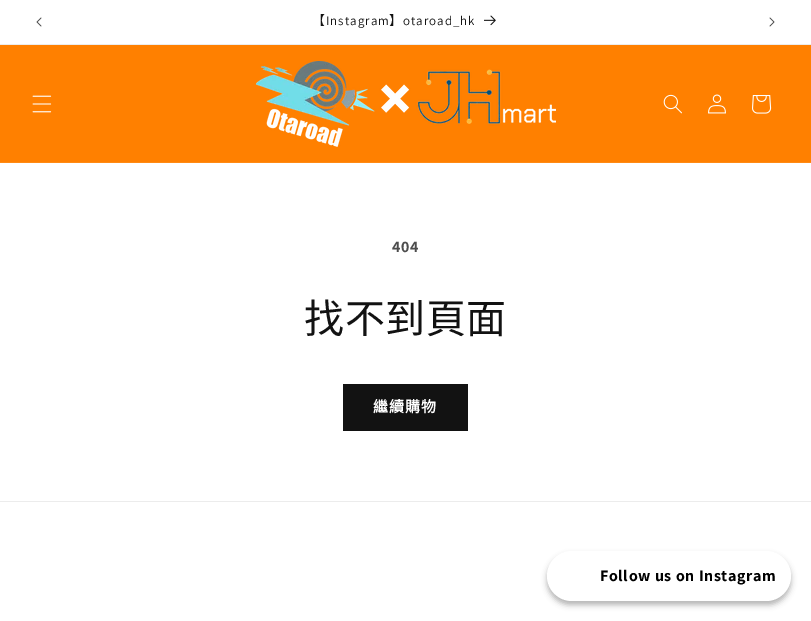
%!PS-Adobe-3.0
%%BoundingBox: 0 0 811 621
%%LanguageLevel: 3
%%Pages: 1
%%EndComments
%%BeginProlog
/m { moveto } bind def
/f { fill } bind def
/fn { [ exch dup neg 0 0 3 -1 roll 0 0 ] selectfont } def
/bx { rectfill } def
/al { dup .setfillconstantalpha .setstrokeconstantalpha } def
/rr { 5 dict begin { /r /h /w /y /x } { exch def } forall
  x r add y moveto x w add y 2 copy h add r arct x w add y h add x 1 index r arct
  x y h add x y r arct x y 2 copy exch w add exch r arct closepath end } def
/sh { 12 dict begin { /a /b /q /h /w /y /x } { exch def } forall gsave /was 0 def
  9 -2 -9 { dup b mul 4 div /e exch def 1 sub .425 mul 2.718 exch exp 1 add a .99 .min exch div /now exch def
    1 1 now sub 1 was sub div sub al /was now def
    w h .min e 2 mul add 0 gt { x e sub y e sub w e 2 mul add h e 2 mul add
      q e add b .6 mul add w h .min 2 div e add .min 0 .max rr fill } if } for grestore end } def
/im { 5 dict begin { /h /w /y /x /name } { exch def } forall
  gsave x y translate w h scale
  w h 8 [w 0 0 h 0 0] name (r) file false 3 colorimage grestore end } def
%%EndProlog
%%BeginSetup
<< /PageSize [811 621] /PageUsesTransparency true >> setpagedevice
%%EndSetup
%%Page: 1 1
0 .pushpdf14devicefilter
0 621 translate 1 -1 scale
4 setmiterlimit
1 setgray
0 0 811 621 bx
0.925 setgray
0 44 811 1 bx
(image0.raw) 36 17 6 10 im
/NotoSansCJKTC-Regular 13 fn
0.071 setgray
312 25 m 1 0 (【) ashow
/Assistant-Regular 13 fn
326 25 m 1 0 (Instagram) ashow
/NotoSansCJKTC-Regular 13 fn
389 25 m 1 0 (】) ashow
/Assistant-Regular 13 fn
403 25 m 1 0 (otaroad_hk) ashow
(image1.raw) 484 15 12 11 im
(image2.raw) 769 17 6 10 im
1 0.502 0 setrgbcolor
0 45 811 117 bx
1 0.541 0.078 setrgbcolor
0 162 811 1 bx
(image3.raw) 32 95 20 18 im
(image4.raw) 256 61 300 86 im
(image5.raw) 663 94 19 20 im
(image6.raw) 708 94 18 20 im
(image7.raw) 752 95 20 19 im
/Assistant-Bold 16 fn
0.302 setgray
392 252 m 0.6 0 (404) ashow
/NotoSansCJKTC-Regular 40 fn
0.071 setgray
304 333 m 0.6 0 (找不到頁面) ashow
343 384 125 47 bx
/NotoSansCJKTC-Bold 15 fn
1 setgray
373 412 m 1 0 (繼續購物) ashow
0.925 setgray
0 501 811 1 bx
0 setgray
547 555 244 50 25 3 0.3 sh
1 setgray
547 551 244 50 25 rr f
/Assistant-Bold 16 fn
0 setgray
600 581 m 0.6 0 (Follow us on Instagram) ashow
.poppdf14devicefilter showpage
%%EOF
